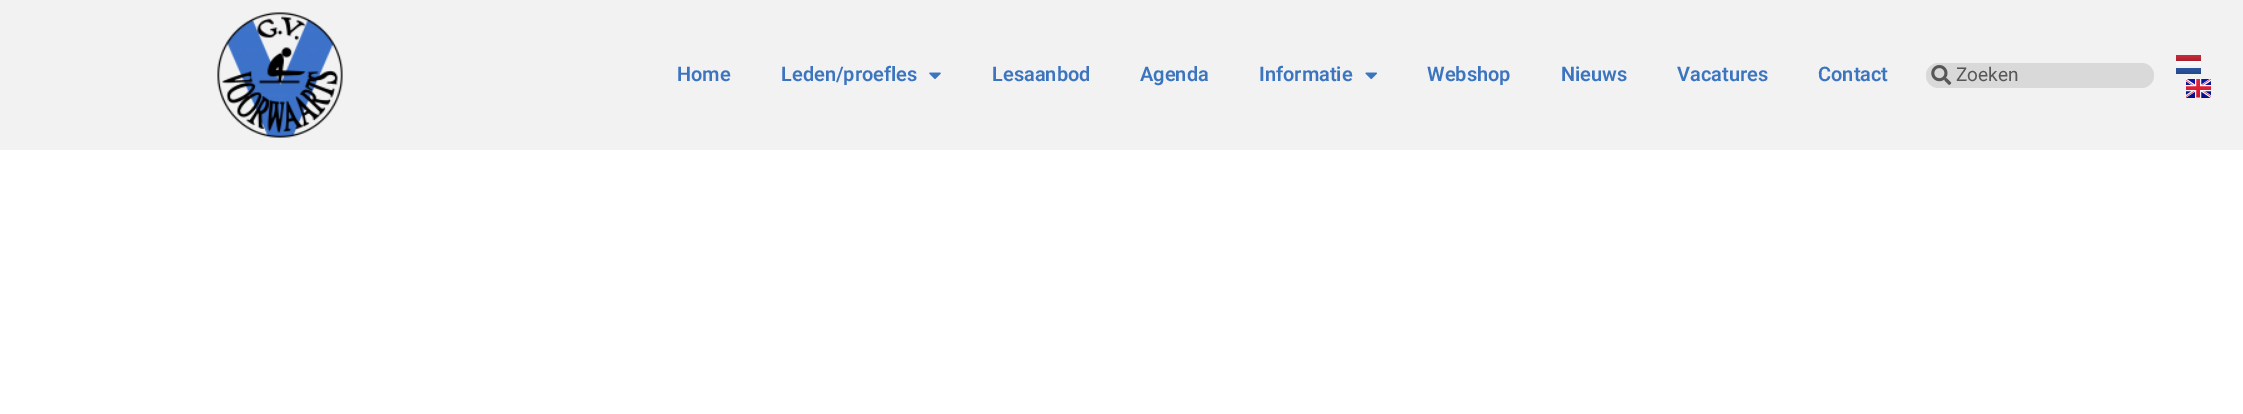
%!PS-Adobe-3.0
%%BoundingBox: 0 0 2243 414
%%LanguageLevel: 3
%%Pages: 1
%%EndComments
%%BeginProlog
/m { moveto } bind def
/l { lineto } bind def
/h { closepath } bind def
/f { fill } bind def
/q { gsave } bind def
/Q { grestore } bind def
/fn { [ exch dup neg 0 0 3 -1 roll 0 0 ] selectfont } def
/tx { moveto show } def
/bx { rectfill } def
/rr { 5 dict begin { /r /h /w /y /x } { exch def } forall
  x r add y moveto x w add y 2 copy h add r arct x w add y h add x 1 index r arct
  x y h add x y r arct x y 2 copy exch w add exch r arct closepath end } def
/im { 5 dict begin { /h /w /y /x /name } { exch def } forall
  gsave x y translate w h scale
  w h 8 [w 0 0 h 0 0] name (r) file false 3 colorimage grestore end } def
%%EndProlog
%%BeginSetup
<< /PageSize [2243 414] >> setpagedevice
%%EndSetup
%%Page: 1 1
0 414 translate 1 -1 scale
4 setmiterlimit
1 setgray
0 0 2243 414 bx
0.949 setgray
0 0 2243 150 bx
(image0.raw) 217 12 126 126 im
/Roboto-SemiBold 20 fn
0.231 0.455 0.749 setrgbcolor
(Home) 677 81 tx
(Leden/proefles) 781 81 tx
(image1.raw) 929 72 12 7 im
(Lesaanbod) 992 81 tx
(Agenda) 1140 81 tx
(Informatie) 1259 81 tx
(image2.raw) 1365 72 12 8 im
(Webshop) 1427 81 tx
(Nieuws) 1561 81 tx
(Vacatures) 1677 81 tx
(Contact) 1818 81 tx
0.851 setgray
1926 63 228 25 12.5 rr f
(image3.raw) 1931 65 21 20 im
/Roboto-Regular 19 fn
0.341 setgray
(Zoeken) 1956 81 tx
q 2176 55 m 2201 55 l 2201 61 l 2176 61 l h clip newpath
<< /ShadingType 2 /ColorSpace /DeviceRGB /Coords [2189 55 2189 61] /Extend [true true] /Function << /FunctionType 2 /Domain [0 1] /C0 [0.792 0.169 0.224] /C1 [0.675 0.122 0.173] /N 1 >> >> shfill Q
q 2176 61 m 2201 61 l 2201 66 l 2176 66 l h clip newpath
<< /ShadingType 2 /ColorSpace /DeviceRGB /Coords [2189 61 2189 68] /Extend [true true] /Function << /FunctionType 2 /Domain [0 1] /C0 [1 1 1] /C1 [0.941 0.941 0.941] /N 1 >> >> shfill Q
q 2176 68 m 2201 68 l 2201 74 l 2176 74 l h clip newpath
<< /ShadingType 2 /ColorSpace /DeviceRGB /Coords [2189 68 2189 74] /Extend [true true] /Function << /FunctionType 2 /Domain [0 1] /C0 [0.173 0.337 0.635] /C1 [0.141 0.282 0.537] /N 1 >> >> shfill Q
(image4.raw) 2186 79 25 19 im
showpage
%%EOF
